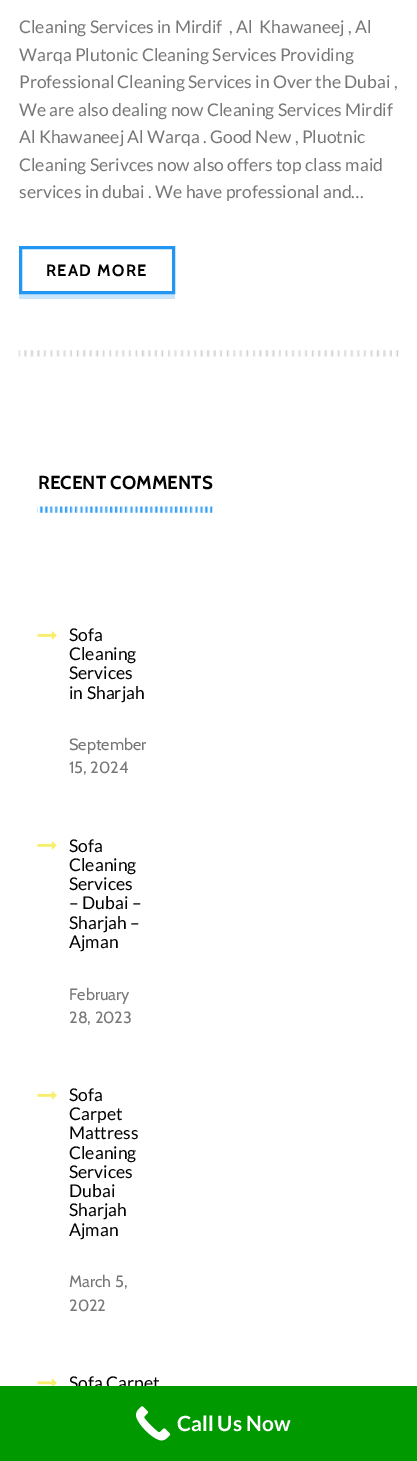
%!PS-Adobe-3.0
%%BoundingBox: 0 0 417 1461
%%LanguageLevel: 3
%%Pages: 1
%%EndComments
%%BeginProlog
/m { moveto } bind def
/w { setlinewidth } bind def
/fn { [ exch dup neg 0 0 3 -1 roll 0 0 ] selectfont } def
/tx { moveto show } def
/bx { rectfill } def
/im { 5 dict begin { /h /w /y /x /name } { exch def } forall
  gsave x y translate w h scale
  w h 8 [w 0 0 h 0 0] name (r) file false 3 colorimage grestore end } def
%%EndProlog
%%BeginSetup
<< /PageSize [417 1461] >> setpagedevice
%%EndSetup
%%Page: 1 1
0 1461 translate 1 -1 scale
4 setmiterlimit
1 setgray
0 0 417 1461 bx
(image0.raw) 18 350 381 7 im
/Lato-Regular 17.5 fn
0.467 setgray
(Cleaning Services in Mirdif  , Al  Khawaneej , Al) 19 33 tx
(Warqa Plutonic Cleaning Services Providing) 19 61 tx
(Professional Cleaning Services in Over the Dubai ,) 19 88 tx
(We are also dealing now Cleaning Services Mirdif) 19 116 tx
(Al Khawaneej Al Warqa . Good New , Pluotnic) 19 143 tx
(Cleaning Serivces now also offers top class maid) 19 171 tx
(services in dubai . We have professional and…) 19 198 tx
0.784 0.898 0.988 setrgbcolor
19 294 156 5 bx
0.129 0.588 0.953 setrgbcolor
3 w
20.5 247.5 153 45 rectstroke
/Cabin-Bold 16.25 fn
0 setgray
46 276 m 1.25 0 (READ MORE) ashow
(image1.raw) 37 506 176 7 im
/Cabin-Bold 18.75 fn
(RECENT COMMENTS) 38 489 tx
(image2.raw) 37 631 20 9 im
/Lato-Regular 17.5 fn
(Sofa) 69 641 tx
(Cleaning) 69 660 tx
(Services) 69 679 tx
(in Sharjah) 69 699 tx
/Cabin-Regular 16.25 fn
0.467 setgray
(September) 69 750 tx
(15, 2024) 69 773 tx
(image2.raw) 37 841 20 9 im
/Lato-Regular 17.5 fn
0 setgray
(Sofa) 69 852 tx
(Cleaning) 69 871 tx
(Services) 69 890 tx
(– Dubai –) 69 909 tx
(Sharjah –) 69 929 tx
(Ajman) 69 948 tx
/Cabin-Regular 16.25 fn
0.467 setgray
(February) 69 1000 tx
(28, 2023) 69 1023 tx
(image2.raw) 37 1091 20 9 im
/Lato-Regular 17.5 fn
0 setgray
(Sofa) 69 1101 tx
(Carpet) 69 1120 tx
(Mattress) 69 1139 tx
(Cleaning) 69 1159 tx
(Services) 69 1178 tx
(Dubai) 69 1197 tx
(Sharjah) 69 1216 tx
(Ajman) 69 1236 tx
/Cabin-Regular 16.25 fn
0.467 setgray
(March 5,) 69 1287 tx
(2022) 69 1311 tx
(image3.raw) 37 1378 20 8 im
/Lato-Regular 17.5 fn
0 setgray
(Sofa Carpet) 69 1389 tx
0 0.6 0 setrgbcolor
0 1386 417 75 bx
(image4.raw) 136 1406 35 35 im
/Lato-Bold 21 fn
1 setgray
(Call Us Now) 177 1431 tx
showpage
%%EOF
